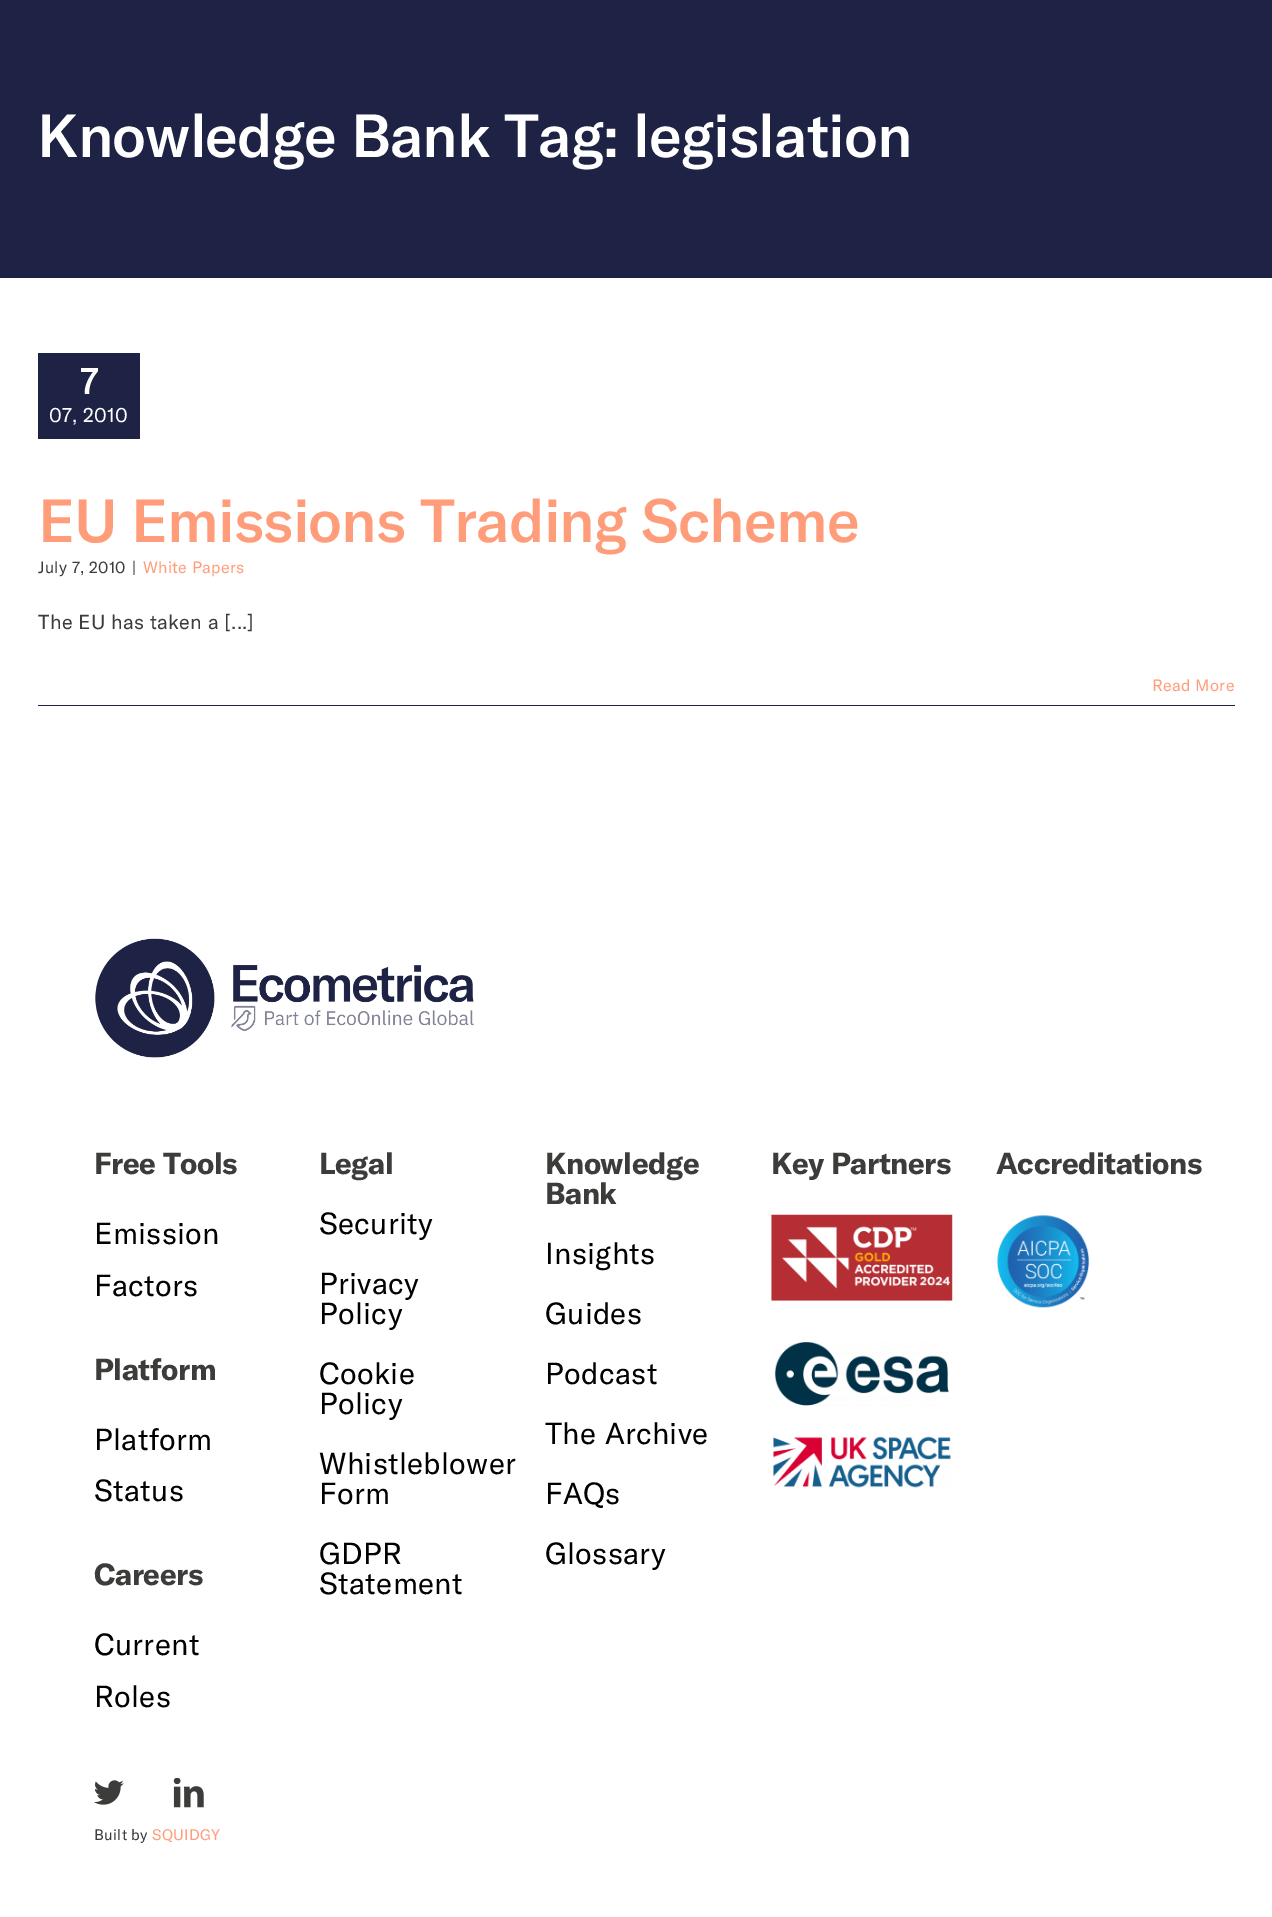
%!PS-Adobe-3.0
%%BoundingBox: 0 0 1272 1917
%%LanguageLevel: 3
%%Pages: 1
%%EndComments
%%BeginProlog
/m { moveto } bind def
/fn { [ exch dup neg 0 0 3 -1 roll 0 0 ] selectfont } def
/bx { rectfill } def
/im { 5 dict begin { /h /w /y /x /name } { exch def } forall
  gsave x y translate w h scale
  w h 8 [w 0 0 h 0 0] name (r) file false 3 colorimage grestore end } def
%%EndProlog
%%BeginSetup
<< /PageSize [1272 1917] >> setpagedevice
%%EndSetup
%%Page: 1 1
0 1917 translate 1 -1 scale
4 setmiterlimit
1 setgray
0 0 1272 1917 bx
0.118 0.133 0.267 setrgbcolor
0 0 1272 278 bx
/GTAmerica-Medium 60 fn
1 setgray
37 157 m -0.9 0 (Knowledge Bank Tag: legislation) ashow
0.118 0.133 0.267 setrgbcolor
38 353 102 86 bx
/GTAmerica-Bold 36 fn
1 setgray
80 394 m 0.3 0 (7) ashow
/GTAmerica-Regular 20 fn
49 422 m 0.3 0 (07, 2010) ashow
/GTAmerica-Medium 60 fn
1 0.616 0.482 setrgbcolor
38 542 m -0.9 0 (EU Emissions Trading Scheme) ashow
/GTAmerica-Regular 16.25 fn
0.235 0.235 0.231 setrgbcolor
38 573 m 0.3 0 (July 7, 2010) ashow
132 573 m 0.3 0 (|) ashow
1 0.616 0.482 setrgbcolor
143 573 m 0.3 0 (White Papers) ashow
/GTAmerica-Regular 20 fn
0.235 0.235 0.231 setrgbcolor
38 629 m 0.3 0 (The EU has taken a [...]) ashow
0.118 0.133 0.267 setrgbcolor
38 705 1197 1 bx
/GTAmerica-Regular 16.25 fn
1 0.616 0.482 setrgbcolor
1152 691 m 0.3 0 (Read More) ashow
(image0.raw) 95 938 379 120 im
/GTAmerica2-Bold 30 fn
0.235 0.235 0.231 setrgbcolor
94 1174 m -0.5 0 (Free Tools) ashow
/GTAmerica-Regular 30 fn
0 setgray
94 1244 m 0.3 0 (Emission) ashow
94 1296 m 0.3 0 (Factors) ashow
/GTAmerica2-Bold 30 fn
0.235 0.235 0.231 setrgbcolor
94 1380 m -0.5 0 (Platform) ashow
/GTAmerica-Regular 30 fn
0 setgray
94 1450 m 0.3 0 (Platform) ashow
94 1501 m 0.3 0 (Status) ashow
/GTAmerica2-Bold 30 fn
0.235 0.235 0.231 setrgbcolor
94 1585 m -0.5 0 (Careers) ashow
/GTAmerica-Regular 30 fn
0 setgray
94 1655 m 0.3 0 (Current) ashow
94 1707 m 0.3 0 (Roles) ashow
/GTAmerica2-Bold 30 fn
0.235 0.235 0.231 setrgbcolor
319 1174 m -0.5 0 (Legal) ashow
/GTAmerica-Regular 30 fn
0 setgray
319 1234 m 0.3 0 (Security) ashow
319 1294 m 0.3 0 (Privacy) ashow
319 1324 m 0.3 0 (Policy) ashow
319 1384 m 0.3 0 (Cookie) ashow
319 1414 m 0.3 0 (Policy) ashow
319 1474 m 0.3 0 (Whistleblower) ashow
319 1504 m 0.3 0 (Form) ashow
319 1564 m 0.3 0 (GDPR) ashow
319 1594 m 0.3 0 (Statement) ashow
/GTAmerica2-Bold 30 fn
0.235 0.235 0.231 setrgbcolor
545 1174 m -0.5 0 (Knowledge) ashow
545 1204 m -0.5 0 (Bank) ashow
/GTAmerica-Regular 30 fn
0 setgray
545 1264 m 0.3 0 (Insights) ashow
545 1324 m 0.3 0 (Guides) ashow
545 1384 m 0.3 0 (Podcast) ashow
545 1444 m 0.3 0 (The Archive) ashow
545 1504 m 0.3 0 (FAQs) ashow
545 1564 m 0.3 0 (Glossary) ashow
/GTAmerica2-Bold 30 fn
0.235 0.235 0.231 setrgbcolor
771 1174 m -0.5 0 (Key Partners) ashow
(image1.raw) 771 1214 182 87 im
(image2.raw) 774 1342 175 64 im
(image3.raw) 773 1436 178 52 im
996 1174 m -0.5 0 (Accreditations) ashow
(image4.raw) 997 1215 93 93 im
(image5.raw) 94 1780 30 25 im
(image6.raw) 173 1778 31 30 im
/GTAmerica-Regular 15 fn
94 1840 m 0.3 0 (Built by) ashow
1 0.616 0.482 setrgbcolor
152 1840 m 0.3 0 (SQUIDGY) ashow
showpage
%%EOF
